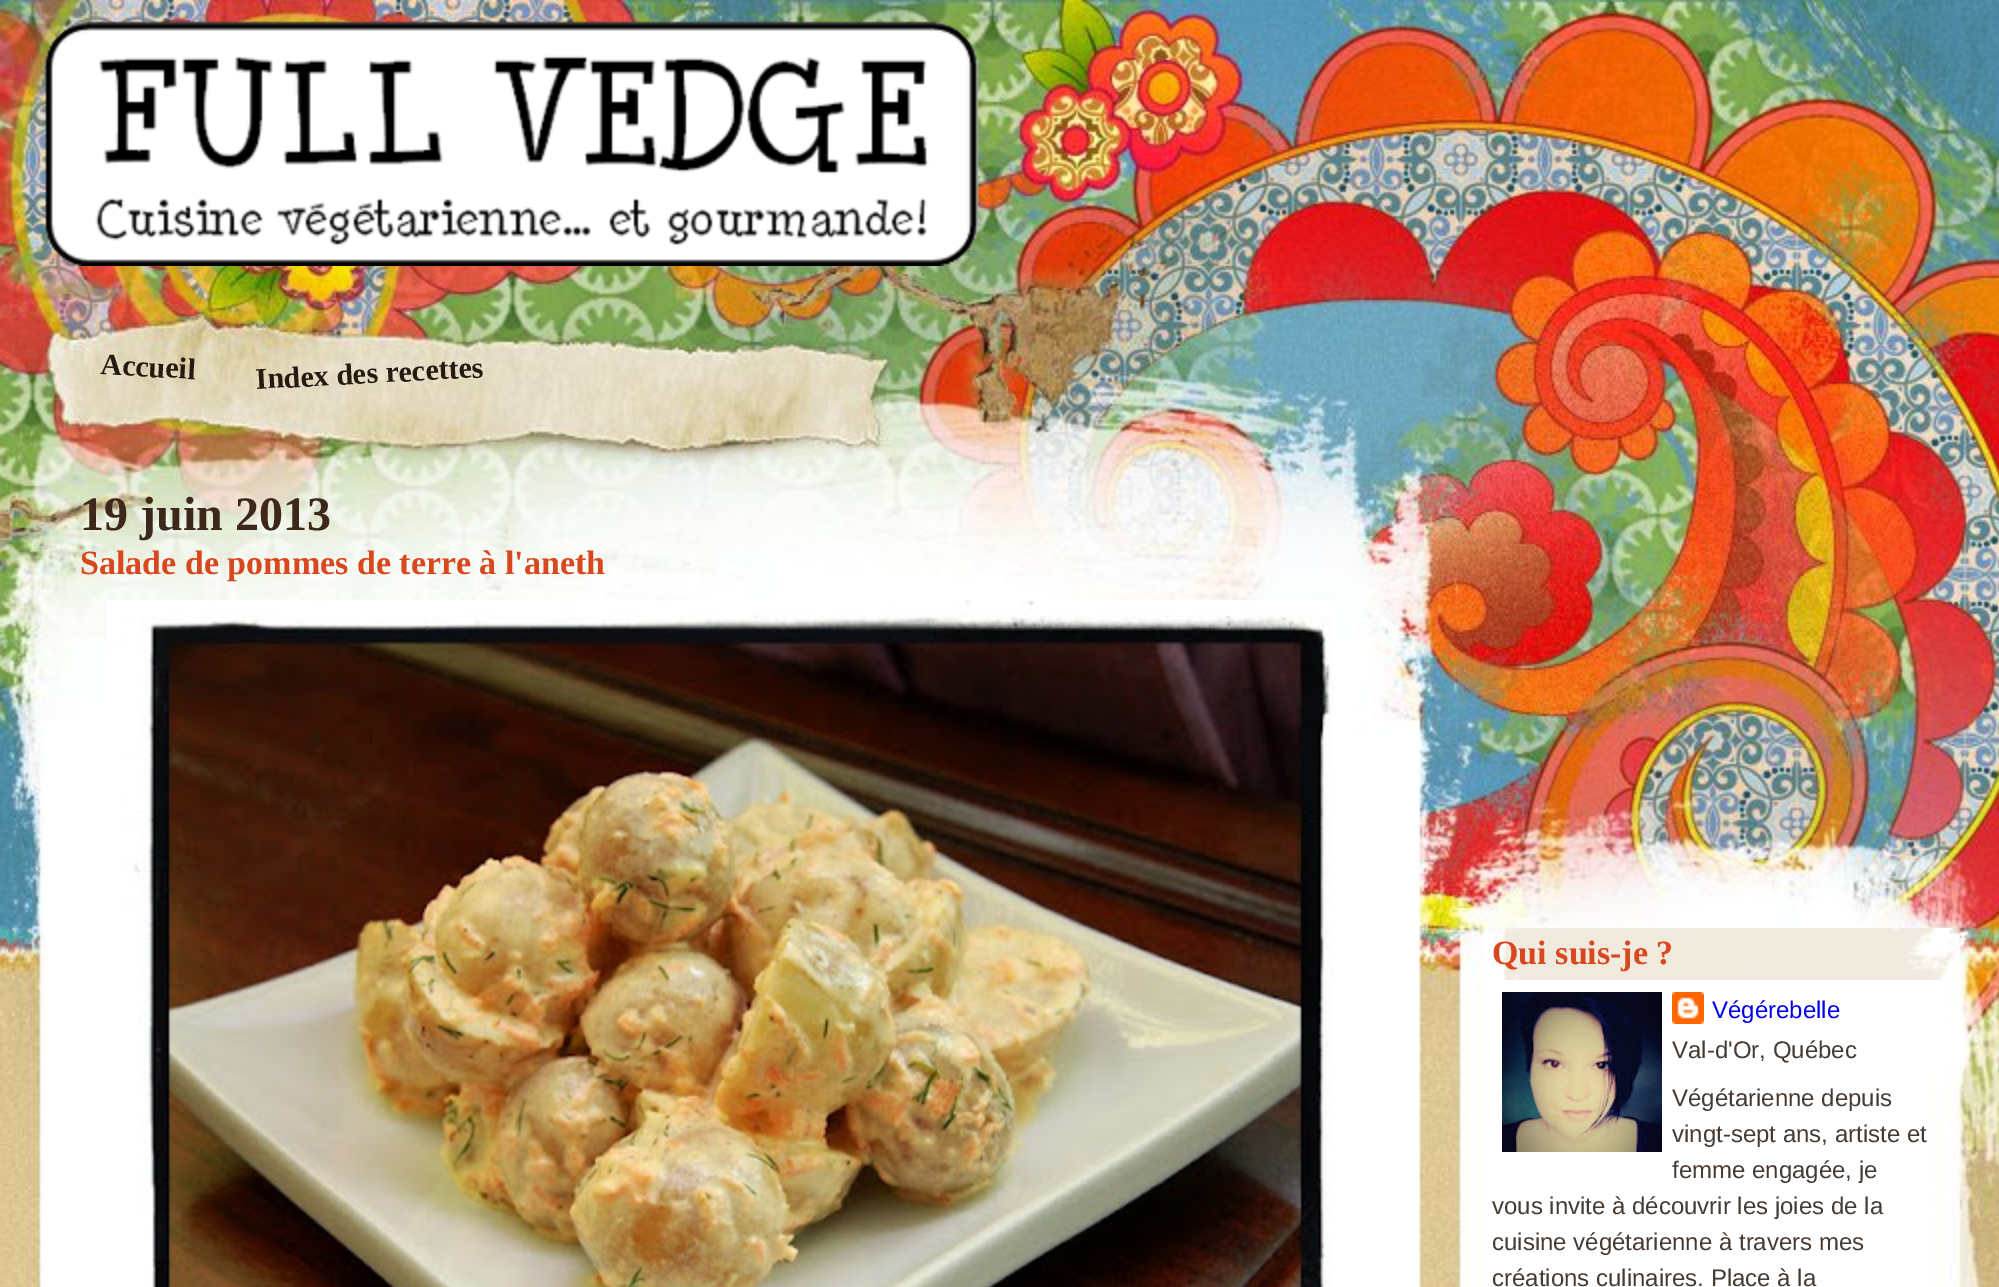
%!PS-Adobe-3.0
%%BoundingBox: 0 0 1999 1287
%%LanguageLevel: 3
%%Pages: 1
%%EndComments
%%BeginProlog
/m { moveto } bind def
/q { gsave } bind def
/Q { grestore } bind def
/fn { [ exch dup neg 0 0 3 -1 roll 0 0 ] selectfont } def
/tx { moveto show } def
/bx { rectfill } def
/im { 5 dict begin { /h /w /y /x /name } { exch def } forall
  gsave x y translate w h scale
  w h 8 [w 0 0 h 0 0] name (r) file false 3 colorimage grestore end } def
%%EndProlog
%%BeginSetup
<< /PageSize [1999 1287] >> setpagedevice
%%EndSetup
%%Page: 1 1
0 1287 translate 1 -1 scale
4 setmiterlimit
1 setgray
0 0 1999 1287 bx
(image0.raw) 0 0 1999 1287 im
(image1.raw) 45 21 934 245 im
/LiberationSerif-Bold 30 fn
0.149 0.102 0.067 setrgbcolor
q 100 374 translate 3 rotate 0 0 m (Accueil) show Q
q 256 389 translate -3 rotate 0 0 m (Index des recettes) show Q
/LiberationSerif-Bold 48 fn
0.239 0.153 0.102 setrgbcolor
(19 juin 2013) 80 530 tx
/LiberationSerif-Bold 34 fn
0.847 0.278 0.114 setrgbcolor
(Salade de pommes de terre à l'aneth) 80 574 tx
(image2.raw) 106 600 1227 687 im
(image3.raw) 1494 928 474 52 im
(Qui suis-je ?) 1492 964 tx
(image4.raw) 1502 992 160 160 im
(image5.raw) 1672 992 32 32 im
/LiberationSans-Regular 24 fn
0 0 0.933 setrgbcolor
(Végérebelle) 1712 1018 tx
0.275 0.231 0.2 setrgbcolor
(Val-d'Or, Québec) 1672 1058 tx
(Végétarienne depuis) 1672 1106 tx
(vingt-sept ans, artiste et) 1672 1142 tx
(femme engagée, je) 1672 1178 tx
(vous invite à découvrir les joies de la) 1492 1214 tx
(cuisine végétarienne à travers mes) 1492 1250 tx
(créations culinaires. Place à la) 1492 1286 tx
showpage
%%EOF
